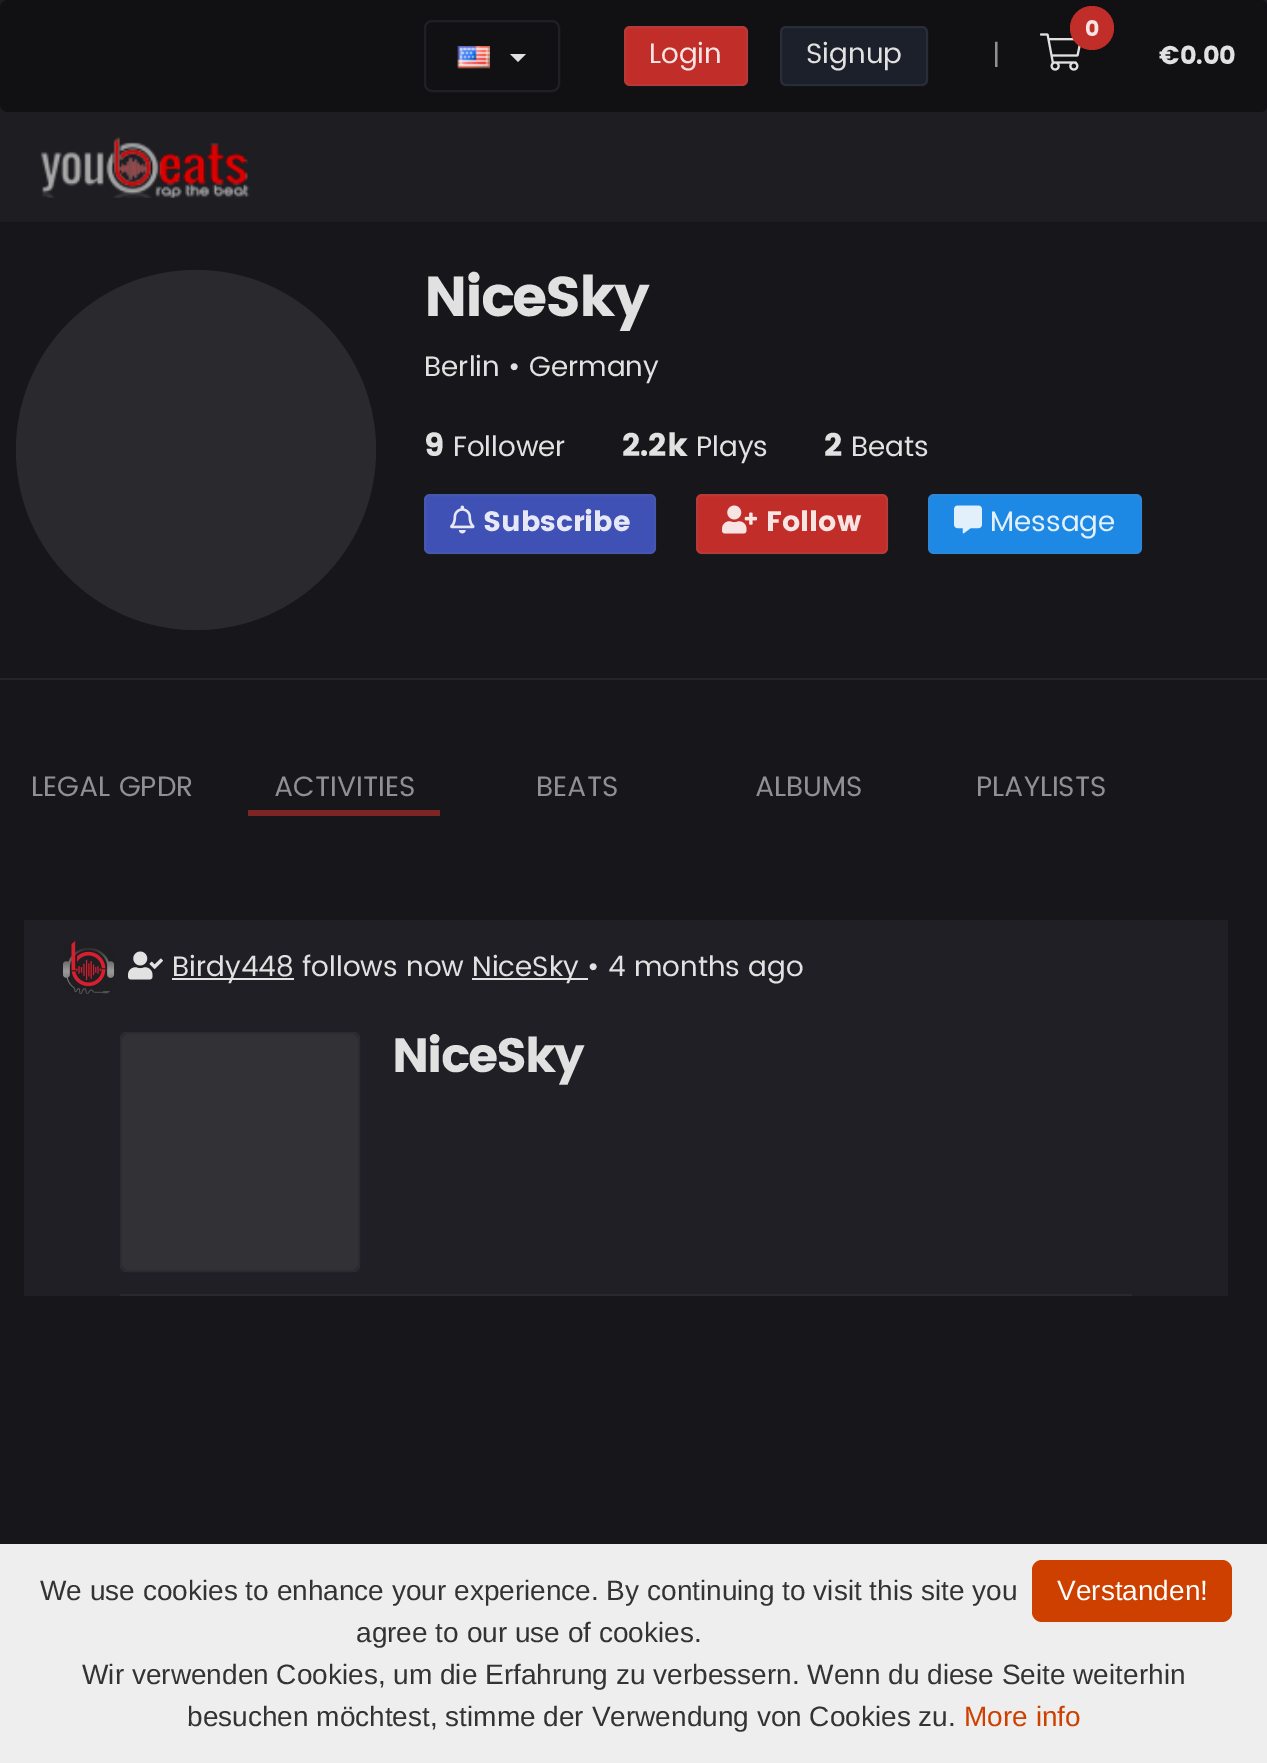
%!PS-Adobe-3.0
%%BoundingBox: 0 0 1267 1763
%%LanguageLevel: 3
%%Pages: 1
%%EndComments
%%BeginProlog
/m { moveto } bind def
/l { lineto } bind def
/h { closepath } bind def
/f { fill } bind def
/S { stroke } bind def
/w { setlinewidth } bind def
/fn { [ exch dup neg 0 0 3 -1 roll 0 0 ] selectfont } def
/tx { moveto show } def
/bx { rectfill } def
/al { dup .setfillconstantalpha .setstrokeconstantalpha } def
/ci { newpath 0 360 arc closepath } def
/rr { 5 dict begin { /r /h /w /y /x } { exch def } forall
  x r add y moveto x w add y 2 copy h add r arct x w add y h add x 1 index r arct
  x y h add x y r arct x y 2 copy exch w add exch r arct closepath end } def
/im { 5 dict begin { /h /w /y /x /name } { exch def } forall
  gsave x y translate w h scale
  w h 8 [w 0 0 h 0 0] name (r) file false 3 colorimage grestore end } def
%%EndProlog
%%BeginSetup
<< /PageSize [1267 1763] /PageUsesTransparency true >> setpagedevice
%%EndSetup
%%Page: 1 1
0 .pushpdf14devicefilter
0 1763 translate 1 -1 scale
4 setmiterlimit
0.09 0.09 0.106 setrgbcolor
0 0 1267 1763 bx
0.114 0.114 0.133 setrgbcolor
0 0 1267 222 bx
0.067 0.067 0.078 setrgbcolor
0 0 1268 112 8 rr f
0.118 0.125 0.141 setrgbcolor
2 w
425 21 134 70 7 rr S
(image0.raw) 457 46 33 23 im
0.878 setgray
510 54 m 526 54 l 518 62 l h f
0.757 0.18 0.165 setrgbcolor
624 26 124 60 6 rr f
0.13 al
0.471 0.51 0.549 setrgbcolor
625 27 122 58 5 rr S
/Poppins-Regular 28 fn
1 al
0.969 0.894 0.89 setrgbcolor
(Login) 649 63 tx
0.11 0.125 0.169 setrgbcolor
780 26 148 60 6 rr f
0.13 al
0.471 0.51 0.549 setrgbcolor
781 27 146 58 5 rr S
1 al
0.882 setgray
(Signup) 806 63 tx
0.565 0.565 0.573 setrgbcolor
(|) 992 64 tx
(image1.raw) 1040 33 41 38 im
0.757 0.18 0.165 setrgbcolor
1092 28 22 ci f
/Poppins-Bold 22 fn
0.969 0.894 0.89 setrgbcolor
(0) 1085 36 tx
/Poppins-Bold 25.5 fn
0.882 setgray
(€0.00) 1159 64 tx
(image2.raw) 40 137 210 61 im
0.141 0.145 0.165 setrgbcolor
0 678 1267 2 bx
0.165 0.165 0.18 setrgbcolor
196 450 180 ci f
/Poppins-Bold 56 fn
0.882 setgray
424 316 m -2.25 0 (NiceSky) ashow
/Poppins-Regular 28 fn
(Berlin • Germany) 424 376 tx
/Poppins-Bold 32 fn
(9) 424 456 tx
/Poppins-Regular 28 fn
(Follower) 453 456 tx
/Poppins-Bold 32 fn
(2.2k) 622 456 tx
/Poppins-Regular 28 fn
(Plays) 696 456 tx
/Poppins-Bold 32 fn
(2) 824 456 tx
/Poppins-Regular 28 fn
(Beats) 851 456 tx
0.247 0.318 0.71 setrgbcolor
424 494 232 60 6 rr f
0.13 al
0.471 0.51 0.549 setrgbcolor
425 495 230 58 5 rr S
1 al
(image3.raw) 450 505 25 29 im
/Poppins-Bold 28 fn
0.902 0.91 0.961 setrgbcolor
(Subscribe) 483 531 tx
0.757 0.18 0.165 setrgbcolor
696 494 192 60 6 rr f
0.13 al
0.471 0.51 0.549 setrgbcolor
697 495 190 58 5 rr S
1 al
(image4.raw) 722 505 35 29 im
0.969 0.894 0.89 setrgbcolor
(Follow) 766 531 tx
0.118 0.533 0.898 setrgbcolor
928 494 214 60 6 rr f
0.13 al
0.471 0.51 0.549 setrgbcolor
929 495 212 58 5 rr S
1 al
(image5.raw) 954 505 28 29 im
/Poppins-Regular 28 fn
0.886 0.941 0.988 setrgbcolor
(Message) 990 531 tx
0.565 0.565 0.573 setrgbcolor
(LEGAL GPDR) 31 796 tx
(ACTIVITIES) 274 796 tx
0.49 0.145 0.141 setrgbcolor
248 810 192 6 bx
0.565 0.565 0.573 setrgbcolor
(BEATS) 536 796 tx
(ALBUMS) 755 796 tx
(PLAYLISTS) 976 796 tx
0.122 0.122 0.145 setrgbcolor
24 920 1204 376 bx
(image6.raw) 63 941 52 53 im
(image7.raw) 128 951 35 29 im
0.886 0.886 0.89 setrgbcolor
172 978 122 2 bx
0.882 setgray
(Birdy448 follows now) 172 976 tx
0.886 0.886 0.89 setrgbcolor
472 978 116 2 bx
0.882 setgray
(NiceSky • 4 months ago) 472 976 tx
0.169 0.173 0.196 setrgbcolor
121 1033 238 238 5 rr S
0.192 0.192 0.212 setrgbcolor
122 1034 236 236 6 rr f
/Poppins-Bold 48 fn
0.882 setgray
392 1072 m -2 0 (NiceSky) ashow
0.157 0.157 0.176 setrgbcolor
120 1294 1012 2 bx
0.933 setgray
0 1544 1267 219 bx
/LiberationSans-Regular 28 fn
0.2 setgray
(We use cookies to enhance your experience. By continuing to visit this site you) 40 1600 tx
(agree to our use of cookies.) 356 1642 tx
(Wir verwenden Cookies, um die Erfahrung zu verbessern. Wenn du diese Seite weiterhin) 82 1684 tx
(besuchen möchtest, stimme der Verwendung von Cookies zu.) 187 1726 tx
0.808 0.251 0 setrgbcolor
(More info) 964 1726 tx
1032 1560 200 62 10 rr f
1 setgray
(Verstanden!) 1057 1600 tx
.poppdf14devicefilter showpage
%%EOF
